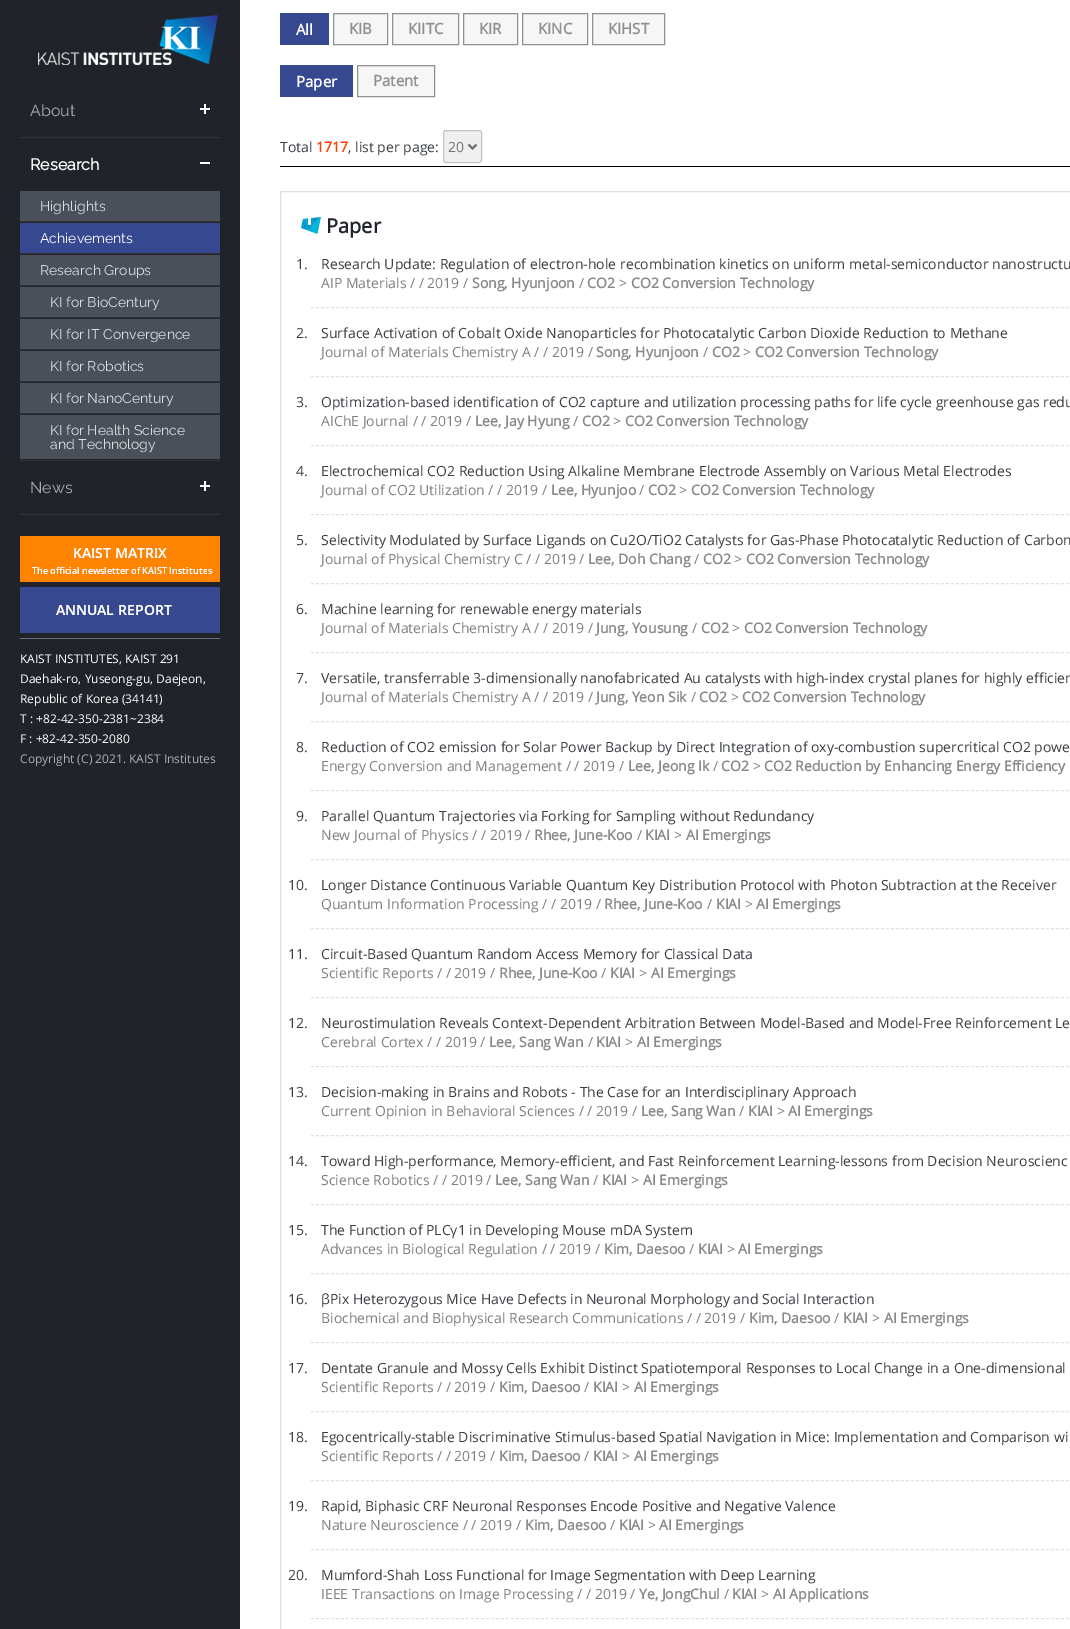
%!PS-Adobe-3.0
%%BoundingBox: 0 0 1070 1629
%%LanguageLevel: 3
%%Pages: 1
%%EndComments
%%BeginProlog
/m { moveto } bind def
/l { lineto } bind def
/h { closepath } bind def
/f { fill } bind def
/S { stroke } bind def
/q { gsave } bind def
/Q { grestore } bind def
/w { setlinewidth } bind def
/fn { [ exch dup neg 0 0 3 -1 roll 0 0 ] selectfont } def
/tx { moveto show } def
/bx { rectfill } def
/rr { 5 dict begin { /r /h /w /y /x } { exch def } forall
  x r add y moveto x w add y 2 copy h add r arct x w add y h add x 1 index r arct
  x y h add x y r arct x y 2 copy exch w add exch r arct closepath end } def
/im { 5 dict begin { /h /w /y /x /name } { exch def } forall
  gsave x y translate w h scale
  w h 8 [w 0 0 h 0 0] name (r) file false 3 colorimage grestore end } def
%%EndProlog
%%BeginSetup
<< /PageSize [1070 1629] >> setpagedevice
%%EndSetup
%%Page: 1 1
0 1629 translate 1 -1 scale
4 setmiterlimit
1 setgray
0 0 1070 1629 bx
0.125 0.141 0.165 setrgbcolor
0 0 240 1629 bx
(image0.raw) 38 15 180 50 im
0.2 setgray
20 137 200 1 bx
/Raleway-Regular 16 fn
0.678 setgray
(About) 30 116 tx
1 setgray
200 108 10 2 bx
204 104 2 10 bx
0.2 setgray
20 460 200 1 bx
/Raleway-Bold 16 fn
1 setgray
(Research) 30 170 tx
200 162 10 2 bx
0.2 setgray
20 221 200 1 bx
0.286 0.314 0.353 setrgbcolor
20 191 200 30 bx
/Raleway-Regular 14 fn
0.867 setgray
(Highlights) 40 211 tx
0.2 setgray
20 253 200 1 bx
0.212 0.282 0.565 setrgbcolor
20 223 200 30 bx
1 setgray
(Achievements) 40 243 tx
0.2 setgray
20 285 200 1 bx
0.286 0.314 0.353 setrgbcolor
20 255 200 30 bx
0.867 setgray
(Research Groups) 40 275 tx
0.2 setgray
20 317 200 1 bx
0.286 0.314 0.353 setrgbcolor
20 287 200 30 bx
0.867 setgray
(KI for BioCentury) 50 307 tx
0.2 setgray
20 349 200 1 bx
0.286 0.314 0.353 setrgbcolor
20 319 200 30 bx
0.867 setgray
(KI for IT Convergence) 50 339 tx
0.2 setgray
20 381 200 1 bx
0.286 0.314 0.353 setrgbcolor
20 351 200 30 bx
0.867 setgray
(KI for Robotics) 50 371 tx
0.2 setgray
20 413 200 1 bx
0.286 0.314 0.353 setrgbcolor
20 383 200 30 bx
0.867 setgray
(KI for NanoCentury) 50 403 tx
0.286 0.314 0.353 setrgbcolor
20 415 200 44 bx
0.867 setgray
(KI for Health Science) 50 435 tx
(and Technology) 50 449 tx
0.2 setgray
20 514 200 1 bx
/Raleway-Regular 16 fn
0.678 setgray
(News) 30 493 tx
1 setgray
200 485 10 2 bx
204 481 2 10 bx
0.435 0.443 0.455 setrgbcolor
20 638 200 1 bx
(image1.raw) 20 536 200 46 im
(image2.raw) 20 587 200 46 im
/OpenSans-Regular 12 fn
1 setgray
(KAIST INSTITUTES, KAIST 291) 20 663 tx
(Daehak-ro, Yuseong-gu, Daejeon,) 20 683 tx
(Republic of Korea \(34141\)) 20 703 tx
(T : +82-42-350-2381~2384) 20 723 tx
(F : +82-42-350-2080) 20 743 tx
0.678 setgray
(Copyright \(C\) 2021. KAIST Institutes) 20 763 tx
0.212 0.282 0.565 setrgbcolor
280 13 49 32 bx
/OpenSans-Bold 15 fn
1 setgray
(All) 296 35 tx
0.965 setgray
333.5 13.5 m 387.5 13.5 l 387.5 44.5 l 333.5 44.5 l h q f Q
0.565 setgray
S
(KIB) 349 34 tx
0.965 setgray
392.5 13.5 m 458.5 13.5 l 458.5 44.5 l 392.5 44.5 l h q f Q
0.565 setgray
S
(KIITC) 408 34 tx
0.965 setgray
463.5 13.5 m 517.5 13.5 l 517.5 44.5 l 463.5 44.5 l h q f Q
0.565 setgray
S
(KIR) 479 34 tx
0.965 setgray
522.5 13.5 m 587.5 13.5 l 587.5 44.5 l 522.5 44.5 l h q f Q
0.565 setgray
S
(KINC) 538 34 tx
0.965 setgray
592.5 13.5 m 664.5 13.5 l 664.5 44.5 l 592.5 44.5 l h q f Q
0.565 setgray
S
(KIHST) 608 34 tx
0.212 0.282 0.565 setrgbcolor
280 65 73 32 bx
1 setgray
(Paper) 296 87 tx
0.965 setgray
357.5 65.5 m 434.5 65.5 l 434.5 96.5 l 357.5 96.5 l h q f Q
0.565 setgray
S
(Patent) 373 86 tx
0 setgray
280 166 790 1 bx
/OpenSans-Regular 14 fn
0.235 0.247 0.267 setrgbcolor
(Total) 280 152 tx
/OpenSans-Bold 14 fn
1 0.243 0 setrgbcolor
(1717) 316 152 tx
/OpenSans-Regular 14 fn
0.235 0.247 0.267 setrgbcolor
(, list per page:) 348 152 tx
0.937 setgray
443.5 130.5 38 32 2.5 rr q f Q
0.765 setgray
S
0.439 setgray
2 w
468.5 144.5 m 472.5 148.5 l 476.5 144.5 l S
(20) 448 152 tx
0.871 setgray
1 w
280.5 191.5 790 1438 rectstroke
(image3.raw) 301 217 20 17 im
/OpenSans-Bold 20 fn
0.125 0.141 0.165 setrgbcolor
(Paper) 326 233 tx
0.886 setgray
[3 2] 0 setdash
311 307.5 m 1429 307.5 l S
/OpenSans-Regular 14 fn
0.235 0.247 0.267 setrgbcolor
(1.) 296 269 tx
(Research Update: Regulation of electron-hole recombination kinetics on uniform metal-semiconductor nanostructu) 321 269 tx
0.502 setgray
(AIP Materials / / 2019 /) 321 288 tx
/OpenSans-Bold 14 fn
0.537 setgray
(Song, Hyunjoon) 472 288 tx
/OpenSans-Regular 14 fn
0.502 setgray
(/) 579 288 tx
/OpenSans-Bold 14 fn
0.537 setgray
(CO2) 587 288 tx
/OpenSans-Regular 14 fn
0.502 setgray
(>) 619 288 tx
/OpenSans-Bold 14 fn
0.537 setgray
(CO2 Conversion Technology) 631 288 tx
0.886 setgray
311 376.5 m 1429 376.5 l S
/OpenSans-Regular 14 fn
0.235 0.247 0.267 setrgbcolor
(2.) 296 338 tx
(Surface Activation of Cobalt Oxide Nanoparticles for Photocatalytic Carbon Dioxide Reduction to Methane) 321 338 tx
0.502 setgray
(Journal of Materials Chemistry A / / 2019 /) 321 357 tx
/OpenSans-Bold 14 fn
0.537 setgray
(Song, Hyunjoon) 596 357 tx
/OpenSans-Regular 14 fn
0.502 setgray
(/) 703 357 tx
/OpenSans-Bold 14 fn
0.537 setgray
(CO2) 712 357 tx
/OpenSans-Regular 14 fn
0.502 setgray
(>) 743 357 tx
/OpenSans-Bold 14 fn
0.537 setgray
(CO2 Conversion Technology) 755 357 tx
0.886 setgray
311 445.5 m 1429 445.5 l S
/OpenSans-Regular 14 fn
0.235 0.247 0.267 setrgbcolor
(3.) 296 407 tx
(Optimization-based identification of CO2 capture and utilization processing paths for life cycle greenhouse gas redu) 321 407 tx
0.502 setgray
(AIChE Journal / / 2019 /) 321 426 tx
/OpenSans-Bold 14 fn
0.537 setgray
(Lee, Jay Hyung) 475 426 tx
/OpenSans-Regular 14 fn
0.502 setgray
(/) 573 426 tx
/OpenSans-Bold 14 fn
0.537 setgray
(CO2) 582 426 tx
/OpenSans-Regular 14 fn
0.502 setgray
(>) 613 426 tx
/OpenSans-Bold 14 fn
0.537 setgray
(CO2 Conversion Technology) 625 426 tx
0.886 setgray
311 514.5 m 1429 514.5 l S
/OpenSans-Regular 14 fn
0.235 0.247 0.267 setrgbcolor
(4.) 296 476 tx
(Electrochemical CO2 Reduction Using Alkaline Membrane Electrode Assembly on Various Metal Electrodes) 321 476 tx
0.502 setgray
(Journal of CO2 Utilization / / 2019 /) 321 495 tx
/OpenSans-Bold 14 fn
0.537 setgray
(Lee, Hyunjoo) 551 495 tx
/OpenSans-Regular 14 fn
0.502 setgray
(/) 639 495 tx
/OpenSans-Bold 14 fn
0.537 setgray
(CO2) 648 495 tx
/OpenSans-Regular 14 fn
0.502 setgray
(>) 679 495 tx
/OpenSans-Bold 14 fn
0.537 setgray
(CO2 Conversion Technology) 691 495 tx
0.886 setgray
311 583.5 m 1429 583.5 l S
/OpenSans-Regular 14 fn
0.235 0.247 0.267 setrgbcolor
(5.) 296 545 tx
(Selectivity Modulated by Surface Ligands on Cu2O/TiO2 Catalysts for Gas-Phase Photocatalytic Reduction of Carbon) 321 545 tx
0.502 setgray
(Journal of Physical Chemistry C / / 2019 /) 321 564 tx
/OpenSans-Bold 14 fn
0.537 setgray
(Lee, Doh Chang) 588 564 tx
/OpenSans-Regular 14 fn
0.502 setgray
(/) 694 564 tx
/OpenSans-Bold 14 fn
0.537 setgray
(CO2) 703 564 tx
/OpenSans-Regular 14 fn
0.502 setgray
(>) 734 564 tx
/OpenSans-Bold 14 fn
0.537 setgray
(CO2 Conversion Technology) 746 564 tx
0.886 setgray
311 652.5 m 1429 652.5 l S
/OpenSans-Regular 14 fn
0.235 0.247 0.267 setrgbcolor
(6.) 296 614 tx
(Machine learning for renewable energy materials) 321 614 tx
0.502 setgray
(Journal of Materials Chemistry A / / 2019 /) 321 633 tx
/OpenSans-Bold 14 fn
0.537 setgray
(Jung, Yousung) 596 633 tx
/OpenSans-Regular 14 fn
0.502 setgray
(/) 692 633 tx
/OpenSans-Bold 14 fn
0.537 setgray
(CO2) 701 633 tx
/OpenSans-Regular 14 fn
0.502 setgray
(>) 732 633 tx
/OpenSans-Bold 14 fn
0.537 setgray
(CO2 Conversion Technology) 744 633 tx
0.886 setgray
311 721.5 m 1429 721.5 l S
/OpenSans-Regular 14 fn
0.235 0.247 0.267 setrgbcolor
(7.) 296 683 tx
(Versatile, transferrable 3-dimensionally nanofabricated Au catalysts with high-index crystal planes for highly efficien) 321 683 tx
0.502 setgray
(Journal of Materials Chemistry A / / 2019 /) 321 702 tx
/OpenSans-Bold 14 fn
0.537 setgray
(Jung, Yeon Sik) 596 702 tx
/OpenSans-Regular 14 fn
0.502 setgray
(/) 691 702 tx
/OpenSans-Bold 14 fn
0.537 setgray
(CO2) 699 702 tx
/OpenSans-Regular 14 fn
0.502 setgray
(>) 731 702 tx
/OpenSans-Bold 14 fn
0.537 setgray
(CO2 Conversion Technology) 742 702 tx
0.886 setgray
311 790.5 m 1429 790.5 l S
/OpenSans-Regular 14 fn
0.235 0.247 0.267 setrgbcolor
(8.) 296 752 tx
(Reduction of CO2 emission for Solar Power Backup by Direct Integration of oxy-combustion supercritical CO2 powe) 321 752 tx
0.502 setgray
(Energy Conversion and Management / / 2019 /) 321 771 tx
/OpenSans-Bold 14 fn
0.537 setgray
(Lee, Jeong Ik) 628 771 tx
/OpenSans-Regular 14 fn
0.502 setgray
(/) 713 771 tx
/OpenSans-Bold 14 fn
0.537 setgray
(CO2) 721 771 tx
/OpenSans-Regular 14 fn
0.502 setgray
(>) 753 771 tx
/OpenSans-Bold 14 fn
0.537 setgray
(CO2 Reduction by Enhancing Energy Efficiency) 764 771 tx
0.886 setgray
311 859.5 m 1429 859.5 l S
/OpenSans-Regular 14 fn
0.235 0.247 0.267 setrgbcolor
(9.) 296 821 tx
(Parallel Quantum Trajectories via Forking for Sampling without Redundancy) 321 821 tx
0.502 setgray
(New Journal of Physics / / 2019 /) 321 840 tx
/OpenSans-Bold 14 fn
0.537 setgray
(Rhee, June-Koo) 534 840 tx
/OpenSans-Regular 14 fn
0.502 setgray
(/) 637 840 tx
/OpenSans-Bold 14 fn
0.537 setgray
(KIAI) 645 840 tx
/OpenSans-Regular 14 fn
0.502 setgray
(>) 674 840 tx
/OpenSans-Bold 14 fn
0.537 setgray
(AI Emergings) 686 840 tx
0.886 setgray
311 928.5 m 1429 928.5 l S
/OpenSans-Regular 14 fn
0.235 0.247 0.267 setrgbcolor
(10.) 288 890 tx
(Longer Distance Continuous Variable Quantum Key Distribution Protocol with Photon Subtraction at the Receiver) 321 890 tx
0.502 setgray
(Quantum Information Processing / / 2019 /) 321 909 tx
/OpenSans-Bold 14 fn
0.537 setgray
(Rhee, June-Koo) 604 909 tx
/OpenSans-Regular 14 fn
0.502 setgray
(/) 707 909 tx
/OpenSans-Bold 14 fn
0.537 setgray
(KIAI) 716 909 tx
/OpenSans-Regular 14 fn
0.502 setgray
(>) 745 909 tx
/OpenSans-Bold 14 fn
0.537 setgray
(AI Emergings) 756 909 tx
0.886 setgray
311 997.5 m 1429 997.5 l S
/OpenSans-Regular 14 fn
0.235 0.247 0.267 setrgbcolor
(11.) 288 959 tx
(Circuit-Based Quantum Random Access Memory for Classical Data) 321 959 tx
0.502 setgray
(Scientific Reports / / 2019 /) 321 978 tx
/OpenSans-Bold 14 fn
0.537 setgray
(Rhee, June-Koo) 499 978 tx
/OpenSans-Regular 14 fn
0.502 setgray
(/) 601 978 tx
/OpenSans-Bold 14 fn
0.537 setgray
(KIAI) 610 978 tx
/OpenSans-Regular 14 fn
0.502 setgray
(>) 639 978 tx
/OpenSans-Bold 14 fn
0.537 setgray
(AI Emergings) 651 978 tx
0.886 setgray
311 1066.5 m 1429 1066.5 l S
/OpenSans-Regular 14 fn
0.235 0.247 0.267 setrgbcolor
(12.) 288 1028 tx
(Neurostimulation Reveals Context-Dependent Arbitration Between Model-Based and Model-Free Reinforcement Le) 321 1028 tx
0.502 setgray
(Cerebral Cortex / / 2019 /) 321 1047 tx
/OpenSans-Bold 14 fn
0.537 setgray
(Lee, Sang Wan) 489 1047 tx
/OpenSans-Regular 14 fn
0.502 setgray
(/) 588 1047 tx
/OpenSans-Bold 14 fn
0.537 setgray
(KIAI) 596 1047 tx
/OpenSans-Regular 14 fn
0.502 setgray
(>) 625 1047 tx
/OpenSans-Bold 14 fn
0.537 setgray
(AI Emergings) 637 1047 tx
0.886 setgray
311 1135.5 m 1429 1135.5 l S
/OpenSans-Regular 14 fn
0.235 0.247 0.267 setrgbcolor
(13.) 288 1097 tx
(Decision-making in Brains and Robots - The Case for an Interdisciplinary Approach) 321 1097 tx
0.502 setgray
(Current Opinion in Behavioral Sciences / / 2019 /) 321 1116 tx
/OpenSans-Bold 14 fn
0.537 setgray
(Lee, Sang Wan) 641 1116 tx
/OpenSans-Regular 14 fn
0.502 setgray
(/) 739 1116 tx
/OpenSans-Bold 14 fn
0.537 setgray
(KIAI) 748 1116 tx
/OpenSans-Regular 14 fn
0.502 setgray
(>) 777 1116 tx
/OpenSans-Bold 14 fn
0.537 setgray
(AI Emergings) 788 1116 tx
0.886 setgray
311 1204.5 m 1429 1204.5 l S
/OpenSans-Regular 14 fn
0.235 0.247 0.267 setrgbcolor
(14.) 288 1166 tx
(Toward High-performance, Memory-efficient, and Fast Reinforcement Learning-lessons from Decision Neuroscienc) 321 1166 tx
0.502 setgray
(Science Robotics / / 2019 /) 321 1185 tx
/OpenSans-Bold 14 fn
0.537 setgray
(Lee, Sang Wan) 495 1185 tx
/OpenSans-Regular 14 fn
0.502 setgray
(/) 593 1185 tx
/OpenSans-Bold 14 fn
0.537 setgray
(KIAI) 602 1185 tx
/OpenSans-Regular 14 fn
0.502 setgray
(>) 631 1185 tx
/OpenSans-Bold 14 fn
0.537 setgray
(AI Emergings) 643 1185 tx
0.886 setgray
311 1273.5 m 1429 1273.5 l S
/OpenSans-Regular 14 fn
0.235 0.247 0.267 setrgbcolor
(15.) 288 1235 tx
(The Function of PLCγ1 in Developing Mouse mDA System) 321 1235 tx
0.502 setgray
(Advances in Biological Regulation / / 2019 /) 321 1254 tx
/OpenSans-Bold 14 fn
0.537 setgray
(Kim, Daesoo) 604 1254 tx
/OpenSans-Regular 14 fn
0.502 setgray
(/) 689 1254 tx
/OpenSans-Bold 14 fn
0.537 setgray
(KIAI) 698 1254 tx
/OpenSans-Regular 14 fn
0.502 setgray
(>) 727 1254 tx
/OpenSans-Bold 14 fn
0.537 setgray
(AI Emergings) 738 1254 tx
0.886 setgray
311 1342.5 m 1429 1342.5 l S
/OpenSans-Regular 14 fn
0.235 0.247 0.267 setrgbcolor
(16.) 288 1304 tx
(βPix Heterozygous Mice Have Defects in Neuronal Morphology and Social Interaction) 321 1304 tx
0.502 setgray
(Biochemical and Biophysical Research Communications / / 2019 /) 321 1323 tx
/OpenSans-Bold 14 fn
0.537 setgray
(Kim, Daesoo) 749 1323 tx
/OpenSans-Regular 14 fn
0.502 setgray
(/) 834 1323 tx
/OpenSans-Bold 14 fn
0.537 setgray
(KIAI) 843 1323 tx
/OpenSans-Regular 14 fn
0.502 setgray
(>) 872 1323 tx
/OpenSans-Bold 14 fn
0.537 setgray
(AI Emergings) 884 1323 tx
0.886 setgray
311 1411.5 m 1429 1411.5 l S
/OpenSans-Regular 14 fn
0.235 0.247 0.267 setrgbcolor
(17.) 288 1373 tx
(Dentate Granule and Mossy Cells Exhibit Distinct Spatiotemporal Responses to Local Change in a One-dimensional) 321 1373 tx
0.502 setgray
(Scientific Reports / / 2019 /) 321 1392 tx
/OpenSans-Bold 14 fn
0.537 setgray
(Kim, Daesoo) 499 1392 tx
/OpenSans-Regular 14 fn
0.502 setgray
(/) 584 1392 tx
/OpenSans-Bold 14 fn
0.537 setgray
(KIAI) 593 1392 tx
/OpenSans-Regular 14 fn
0.502 setgray
(>) 622 1392 tx
/OpenSans-Bold 14 fn
0.537 setgray
(AI Emergings) 634 1392 tx
0.886 setgray
311 1480.5 m 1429 1480.5 l S
/OpenSans-Regular 14 fn
0.235 0.247 0.267 setrgbcolor
(18.) 288 1442 tx
(Egocentrically-stable Discriminative Stimulus-based Spatial Navigation in Mice: Implementation and Comparison wi) 321 1442 tx
0.502 setgray
(Scientific Reports / / 2019 /) 321 1461 tx
/OpenSans-Bold 14 fn
0.537 setgray
(Kim, Daesoo) 499 1461 tx
/OpenSans-Regular 14 fn
0.502 setgray
(/) 584 1461 tx
/OpenSans-Bold 14 fn
0.537 setgray
(KIAI) 593 1461 tx
/OpenSans-Regular 14 fn
0.502 setgray
(>) 622 1461 tx
/OpenSans-Bold 14 fn
0.537 setgray
(AI Emergings) 634 1461 tx
0.886 setgray
311 1549.5 m 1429 1549.5 l S
/OpenSans-Regular 14 fn
0.235 0.247 0.267 setrgbcolor
(19.) 288 1511 tx
(Rapid, Biphasic CRF Neuronal Responses Encode Positive and Negative Valence) 321 1511 tx
0.502 setgray
(Nature Neuroscience / / 2019 /) 321 1530 tx
/OpenSans-Bold 14 fn
0.537 setgray
(Kim, Daesoo) 525 1530 tx
/OpenSans-Regular 14 fn
0.502 setgray
(/) 610 1530 tx
/OpenSans-Bold 14 fn
0.537 setgray
(KIAI) 619 1530 tx
/OpenSans-Regular 14 fn
0.502 setgray
(>) 648 1530 tx
/OpenSans-Bold 14 fn
0.537 setgray
(AI Emergings) 659 1530 tx
0.886 setgray
311 1618.5 m 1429 1618.5 l S
/OpenSans-Regular 14 fn
0.235 0.247 0.267 setrgbcolor
(20.) 288 1580 tx
(Mumford-Shah Loss Functional for Image Segmentation with Deep Learning) 321 1580 tx
0.502 setgray
(IEEE Transactions on Image Processing / / 2019 /) 321 1599 tx
/OpenSans-Bold 14 fn
0.537 setgray
(Ye, JongChul) 639 1599 tx
/OpenSans-Regular 14 fn
0.502 setgray
(/) 724 1599 tx
/OpenSans-Bold 14 fn
0.537 setgray
(KIAI) 732 1599 tx
/OpenSans-Regular 14 fn
0.502 setgray
(>) 761 1599 tx
/OpenSans-Bold 14 fn
0.537 setgray
(AI Applications) 773 1599 tx
showpage
%%EOF
